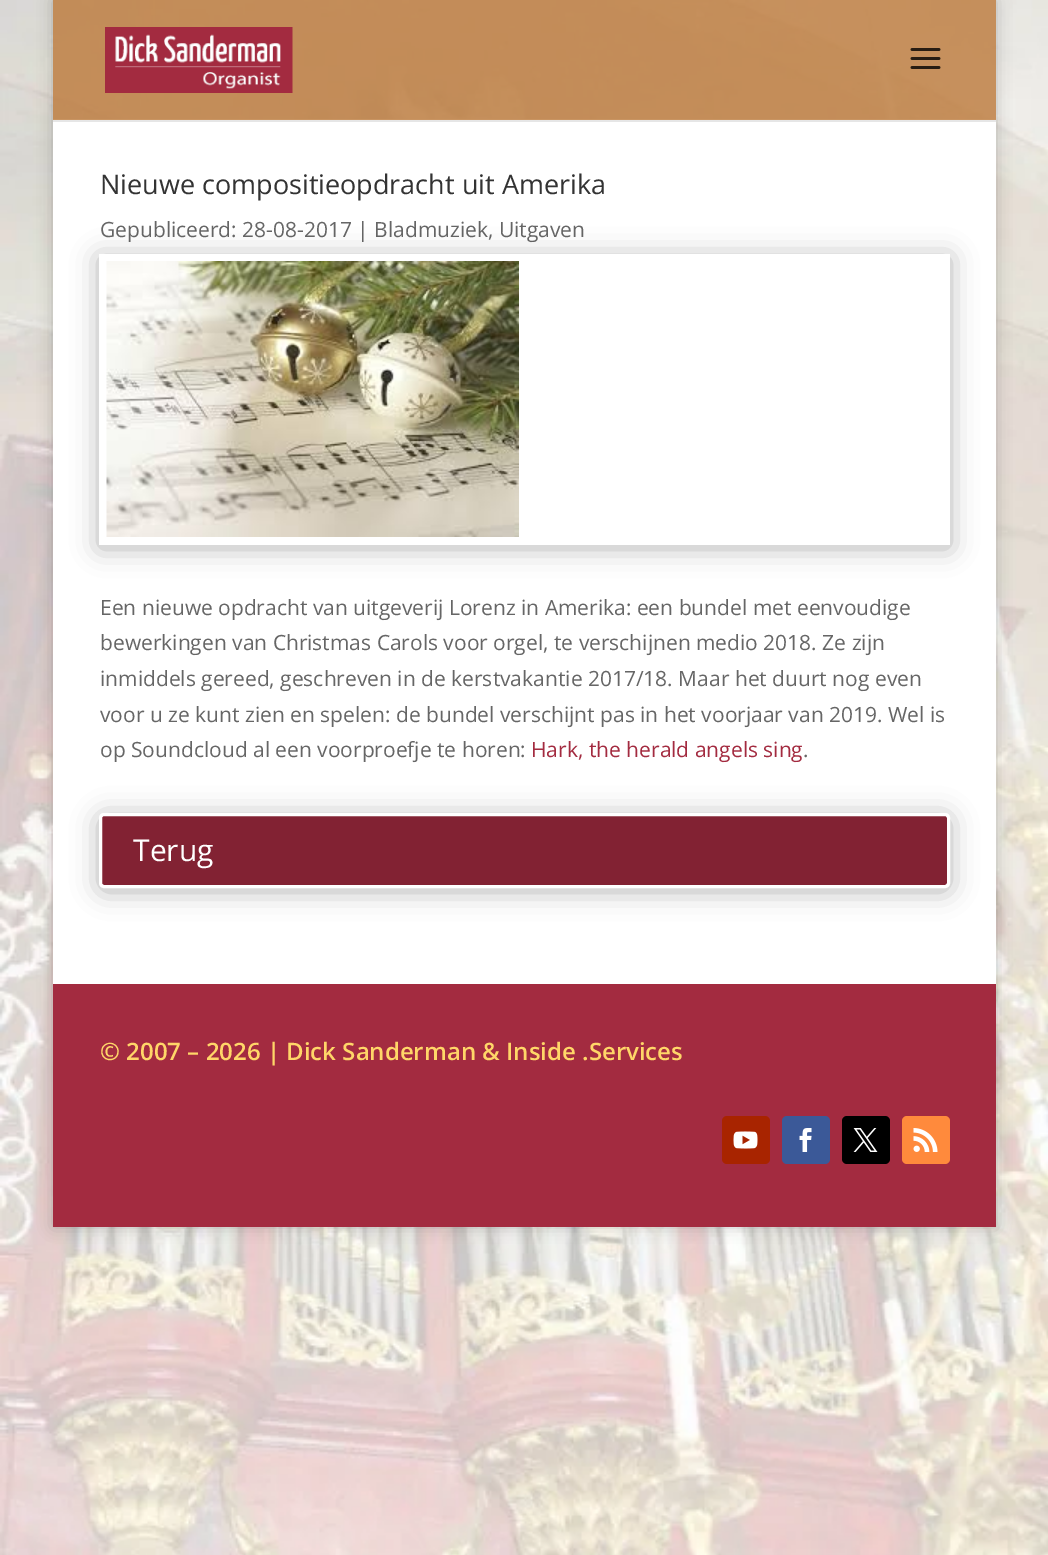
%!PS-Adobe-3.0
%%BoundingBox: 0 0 1048 1555
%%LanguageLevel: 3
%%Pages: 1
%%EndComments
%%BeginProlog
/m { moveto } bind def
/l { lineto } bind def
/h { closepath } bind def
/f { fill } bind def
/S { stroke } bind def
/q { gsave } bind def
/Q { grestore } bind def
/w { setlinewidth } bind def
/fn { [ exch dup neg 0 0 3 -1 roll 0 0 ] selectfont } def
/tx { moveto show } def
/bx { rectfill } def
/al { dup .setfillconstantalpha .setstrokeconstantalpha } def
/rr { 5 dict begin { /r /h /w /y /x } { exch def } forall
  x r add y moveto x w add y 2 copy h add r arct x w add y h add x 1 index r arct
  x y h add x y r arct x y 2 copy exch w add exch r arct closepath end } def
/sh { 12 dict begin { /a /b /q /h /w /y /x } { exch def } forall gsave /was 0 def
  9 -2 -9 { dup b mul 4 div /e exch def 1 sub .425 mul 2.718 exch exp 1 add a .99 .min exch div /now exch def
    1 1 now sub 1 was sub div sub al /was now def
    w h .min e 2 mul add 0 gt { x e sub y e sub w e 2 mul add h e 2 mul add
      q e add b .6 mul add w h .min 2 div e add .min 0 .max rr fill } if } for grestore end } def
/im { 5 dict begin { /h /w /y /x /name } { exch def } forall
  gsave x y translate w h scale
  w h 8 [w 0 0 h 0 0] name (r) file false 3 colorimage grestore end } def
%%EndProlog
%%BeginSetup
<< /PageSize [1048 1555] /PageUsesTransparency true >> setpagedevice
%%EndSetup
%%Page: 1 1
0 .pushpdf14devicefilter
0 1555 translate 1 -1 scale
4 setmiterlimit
1 setgray
0 0 1048 1555 bx
(image0.raw) 0 0 1048 1555 im
q
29 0 m 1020 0 l 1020 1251 l 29 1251 l h 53 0 m 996 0 l 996 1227 l 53 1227 l h eoclip newpath
0 setgray
53 0 943 1227 0 7.5 0.2 sh
Q
53 119 943 865 bx
0.902 setgray
53 120 943 2 bx
0.8 al
0.737 0.475 0.227 setrgbcolor
53 0 943 120 bx
1 al
(image1.raw) 105 27 188 66 im
(image2.raw) 910 48 31 21 im
/OpenSans-Regular 27 fn
0.2 setgray
(Nieuwe compositieopdracht uit Amerika) 100 194 tx
/OpenSans-Regular 21 fn
0.4 setgray
(Gepubliceerd: 28-08-2017 | Bladmuziek, Uitgaven) 100 237 tx
q
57 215 m 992 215 l 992 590 l 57 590 l h 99 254 m 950 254 l 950 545 l 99 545 l h eoclip newpath
0 setgray
99 257 851 291 0 13.5 0.3 sh
Q
(image3.raw) 106 261 413 276 im
(Een nieuwe opdracht van uitgeverij Lorenz in Amerika: een bundel met eenvoudige) 100 615 tx
(bewerkingen van Christmas Carols voor orgel, te verschijnen medio 2018. Ze zijn) 100 650 tx
(inmiddels gereed, geschreven in de kerstvakantie 2017/18. Maar het duurt nog even) 100 686 tx
(voor u ze kunt zien en spelen: de bundel verschijnt pas in het voorjaar van 2019. Wel is) 100 722 tx
(op Soundcloud al een voorproefje te horen:) 100 757 tx
0.639 0.169 0.251 setrgbcolor
(Hark, the herald angels sing) 531 757 tx
0.4 setgray
(.) 803 757 tx
0 setgray
99 816 851 75 5 13.5 0.3 sh
0.51 0.133 0.2 setrgbcolor
100.5 814.5 848 72 3.5 rr q f Q
1 setgray
3 w
S
/OpenSans-Regular 30 fn
(Terug) 133 861 tx
0.639 0.169 0.251 setrgbcolor
53 984 943 243 bx
/OpenSans-SemiBold 24 fn
1 0.839 0.408 setrgbcolor
(© 2007 – 2026 | Dick Sanderman & Inside .Services) 100 1060 tx
0.659 0.141 0 setrgbcolor
722 1116 48 48 5 rr f
(image4.raw) 733 1131 25 18 im
0.231 0.349 0.596 setrgbcolor
782 1116 48 48 5 rr f
(image5.raw) 799 1128 13 24 im
0 setgray
842 1116 48 48 5 rr f
(image6.raw) 853 1128 25 24 im
1 0.541 0.235 setrgbcolor
902 1116 48 48 5 rr f
(image7.raw) 913 1128 25 24 im
.poppdf14devicefilter showpage
%%EOF
